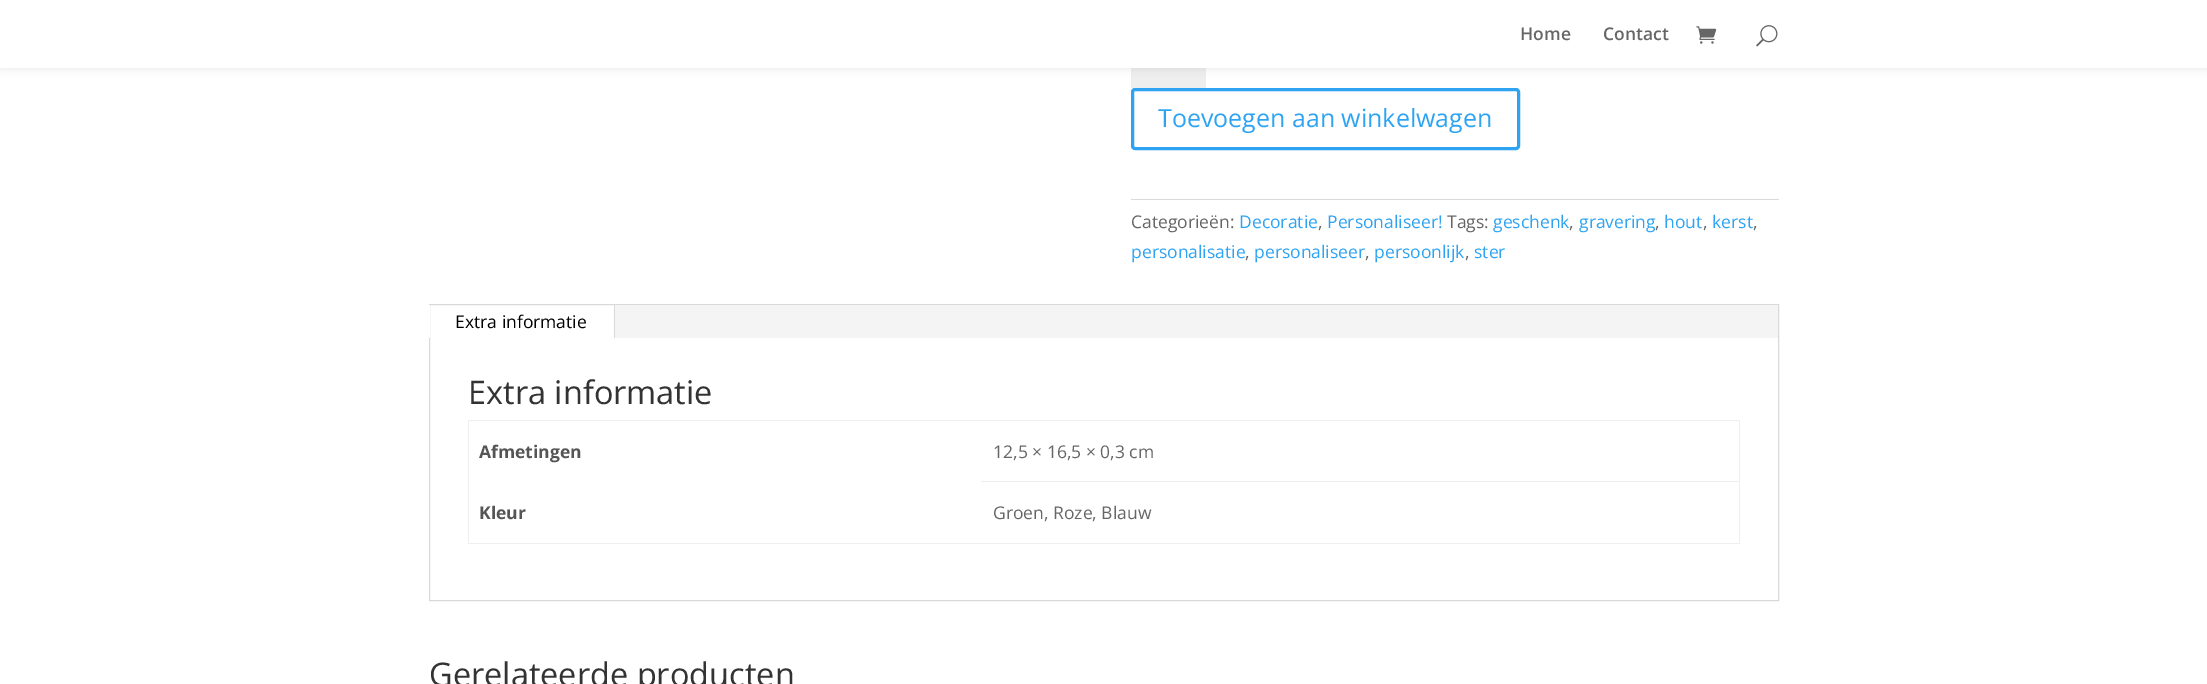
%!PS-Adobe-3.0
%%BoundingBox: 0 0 2207 684
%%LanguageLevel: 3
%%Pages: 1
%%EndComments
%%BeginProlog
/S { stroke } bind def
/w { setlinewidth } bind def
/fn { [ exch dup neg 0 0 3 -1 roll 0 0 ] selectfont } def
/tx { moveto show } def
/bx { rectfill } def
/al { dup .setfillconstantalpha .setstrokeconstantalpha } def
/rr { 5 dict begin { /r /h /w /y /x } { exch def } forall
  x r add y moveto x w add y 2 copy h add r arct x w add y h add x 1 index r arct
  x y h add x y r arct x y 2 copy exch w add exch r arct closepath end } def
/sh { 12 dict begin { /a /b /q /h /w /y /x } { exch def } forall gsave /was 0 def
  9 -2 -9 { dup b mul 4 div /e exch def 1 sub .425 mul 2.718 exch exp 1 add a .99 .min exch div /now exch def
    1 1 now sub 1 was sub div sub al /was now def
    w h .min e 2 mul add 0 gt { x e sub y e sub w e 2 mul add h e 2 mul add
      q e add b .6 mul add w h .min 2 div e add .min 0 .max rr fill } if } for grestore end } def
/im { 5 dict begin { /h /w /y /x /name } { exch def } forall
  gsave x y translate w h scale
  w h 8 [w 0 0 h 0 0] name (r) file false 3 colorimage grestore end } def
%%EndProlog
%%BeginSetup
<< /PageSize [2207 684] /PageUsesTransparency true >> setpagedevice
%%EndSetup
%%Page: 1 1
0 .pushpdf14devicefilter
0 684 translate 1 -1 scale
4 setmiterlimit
1 setgray
0 0 2207 684 bx
0.933 setgray
1131 68 75 20 bx
0 setgray
0 0 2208 68 0 4.5 0.1 sh
1 setgray
0 0 2207 68 bx
/OpenSans-SemiBold 17.5 fn
0.4 setgray
(Home) 1520 40 tx
(Contact) 1603 40 tx
(image0.raw) 1696 26 21 18 im
(image1.raw) 1756 25 22 22 im
0.18 0.639 0.949 setrgbcolor
3 w
1132.5 89.5 386 59 2.5 rr S
/OpenSans-Regular 25 fn
(Toevoegen aan winkelwagen) 1158 127 tx
0.855 setgray
1131 199 648 1 bx
/OpenSans-Regular 17.5 fn
0.4 setgray
(Categorieën:) 1131 228 tx
0.18 0.639 0.949 setrgbcolor
(Decoratie) 1239 228 tx
0.4 setgray
(,) 1318 228 tx
0.18 0.639 0.949 setrgbcolor
(Personaliseer!) 1327 228 tx
0.4 setgray
(Tags:) 1447 228 tx
0.18 0.639 0.949 setrgbcolor
(geschenk) 1493 228 tx
0.4 setgray
(,) 1569 228 tx
0.18 0.639 0.949 setrgbcolor
(gravering) 1579 228 tx
0.4 setgray
(,) 1655 228 tx
0.18 0.639 0.949 setrgbcolor
(hout) 1664 228 tx
0.4 setgray
(,) 1703 228 tx
0.18 0.639 0.949 setrgbcolor
(kerst) 1712 228 tx
0.4 setgray
(,) 1753 228 tx
0.18 0.639 0.949 setrgbcolor
(personalisatie) 1131 258 tx
0.4 setgray
(,) 1245 258 tx
0.18 0.639 0.949 setrgbcolor
(personaliseer) 1254 258 tx
0.4 setgray
(,) 1365 258 tx
0.18 0.639 0.949 setrgbcolor
(persoonlijk) 1374 258 tx
0.4 setgray
(,) 1465 258 tx
0.18 0.639 0.949 setrgbcolor
(ster) 1474 258 tx
0.851 setgray
1 w
429.5 304.5 1349 296 rectstroke
0.957 setgray
615 305 1163 33 bx
1 setgray
429 305 1 33 bx
0.851 setgray
614 305 1 33 bx
0 setgray
(Extra informatie) 455 328 tx
/OpenSans-Regular 32.5 fn
0.2 setgray
(Extra informatie) 468 404 tx
0.933 setgray
468 420 1272 1 bx
1739 420 1 124 bx
468 543 1272 1 bx
468 420 1 124 bx
/OpenSans-Bold 17.5 fn
0.333 setgray
(Afmetingen) 479 458 tx
/OpenSans-Regular 17.5 fn
0.4 setgray
(12,5 × 16,5 × 0,3 cm) 993 458 tx
/OpenSans-Bold 17.5 fn
0.333 setgray
(Kleur) 479 519 tx
0.933 setgray
981 481 759 1 bx
/OpenSans-Regular 17.5 fn
0.4 setgray
(Groen, Roze, Blauw) 993 519 tx
/OpenSans-Regular 32.5 fn
0.2 setgray
(Gerelateerde producten) 429 686 tx
.poppdf14devicefilter showpage
%%EOF
